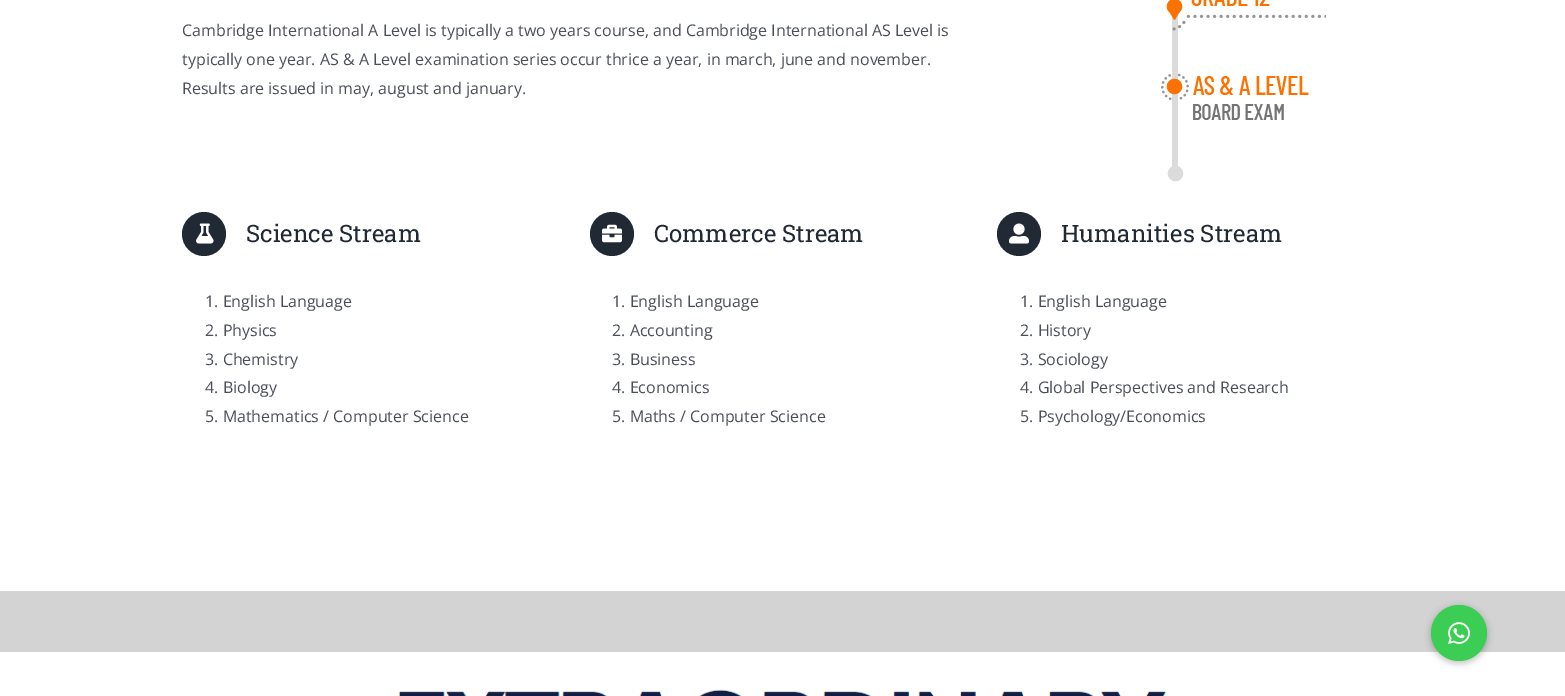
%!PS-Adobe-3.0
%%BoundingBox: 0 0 1565 696
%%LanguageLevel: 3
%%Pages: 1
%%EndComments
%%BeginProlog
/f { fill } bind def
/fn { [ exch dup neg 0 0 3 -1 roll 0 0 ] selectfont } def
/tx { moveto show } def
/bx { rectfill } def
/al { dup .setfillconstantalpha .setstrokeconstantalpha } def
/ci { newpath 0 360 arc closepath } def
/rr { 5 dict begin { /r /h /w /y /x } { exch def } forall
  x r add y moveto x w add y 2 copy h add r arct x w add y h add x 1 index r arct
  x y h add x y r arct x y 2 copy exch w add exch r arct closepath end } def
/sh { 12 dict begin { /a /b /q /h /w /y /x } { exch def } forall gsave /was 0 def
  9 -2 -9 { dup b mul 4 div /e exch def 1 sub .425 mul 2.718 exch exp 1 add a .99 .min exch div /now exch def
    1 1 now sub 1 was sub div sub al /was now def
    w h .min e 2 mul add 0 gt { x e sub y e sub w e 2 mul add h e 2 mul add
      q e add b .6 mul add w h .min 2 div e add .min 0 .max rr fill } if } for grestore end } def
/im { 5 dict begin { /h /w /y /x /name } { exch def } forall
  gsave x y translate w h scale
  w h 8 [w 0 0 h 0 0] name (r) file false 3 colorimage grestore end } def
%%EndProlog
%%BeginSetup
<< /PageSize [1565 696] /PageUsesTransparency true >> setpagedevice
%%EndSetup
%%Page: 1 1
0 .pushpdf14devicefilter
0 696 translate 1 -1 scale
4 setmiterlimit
1 setgray
0 0 1565 696 bx
/OpenSans-Regular 16 fn
0.29 0.306 0.341 setrgbcolor
(Cambridge International A Level is typically a two years course, and Cambridge International AS Level is) 182 36 tx
(typically one year. AS & A Level examination series occur thrice a year, in march, june and november.) 182 65 tx
(Results are issued in may, august and january.) 182 94 tx
(image0.raw) 1161 0 165 182 im
0.129 0.161 0.204 setrgbcolor
204 234 22 ci f
(image1.raw) 196 223 18 21 im
/RobotoSlab-Regular 24 fn
(Science Stream) 246 242 tx
/OpenSans-Regular 16 fn
0.29 0.306 0.341 setrgbcolor
(1. English Language) 205 307 tx
(2. Physics) 205 336 tx
(3. Chemistry) 205 365 tx
(4. Biology) 205 393 tx
(5. Mathematics / Computer Science) 205 422 tx
0.129 0.161 0.204 setrgbcolor
612 234 22 ci f
(image2.raw) 602 224 20 19 im
/RobotoSlab-Regular 24 fn
(Commerce Stream) 654 242 tx
/OpenSans-Regular 16 fn
0.29 0.306 0.341 setrgbcolor
(1. English Language) 612 307 tx
(2. Accounting) 612 336 tx
(3. Business) 612 365 tx
(4. Economics) 612 393 tx
(5. Maths / Computer Science) 612 422 tx
0.129 0.161 0.204 setrgbcolor
1019 234 22 ci f
(image3.raw) 1009 223 20 21 im
/RobotoSlab-Regular 24 fn
(Humanities Stream) 1061 242 tx
/OpenSans-Regular 16 fn
0.29 0.306 0.341 setrgbcolor
(1. English Language) 1020 307 tx
(2. History) 1020 336 tx
(3. Sociology) 1020 365 tx
(4. Global Perspectives and Research) 1020 393 tx
(5. Psychology/Economics) 1020 422 tx
0.827 setgray
0 591 1565 61 bx
(image4.raw) 398 689 769 7 im
0 setgray
1430 606 58 58 29 3 0.2 sh
0.235 0.808 0.329 setrgbcolor
1459 633 28 ci f
(image5.raw) 1448 622 22 22 im
.poppdf14devicefilter showpage
%%EOF
